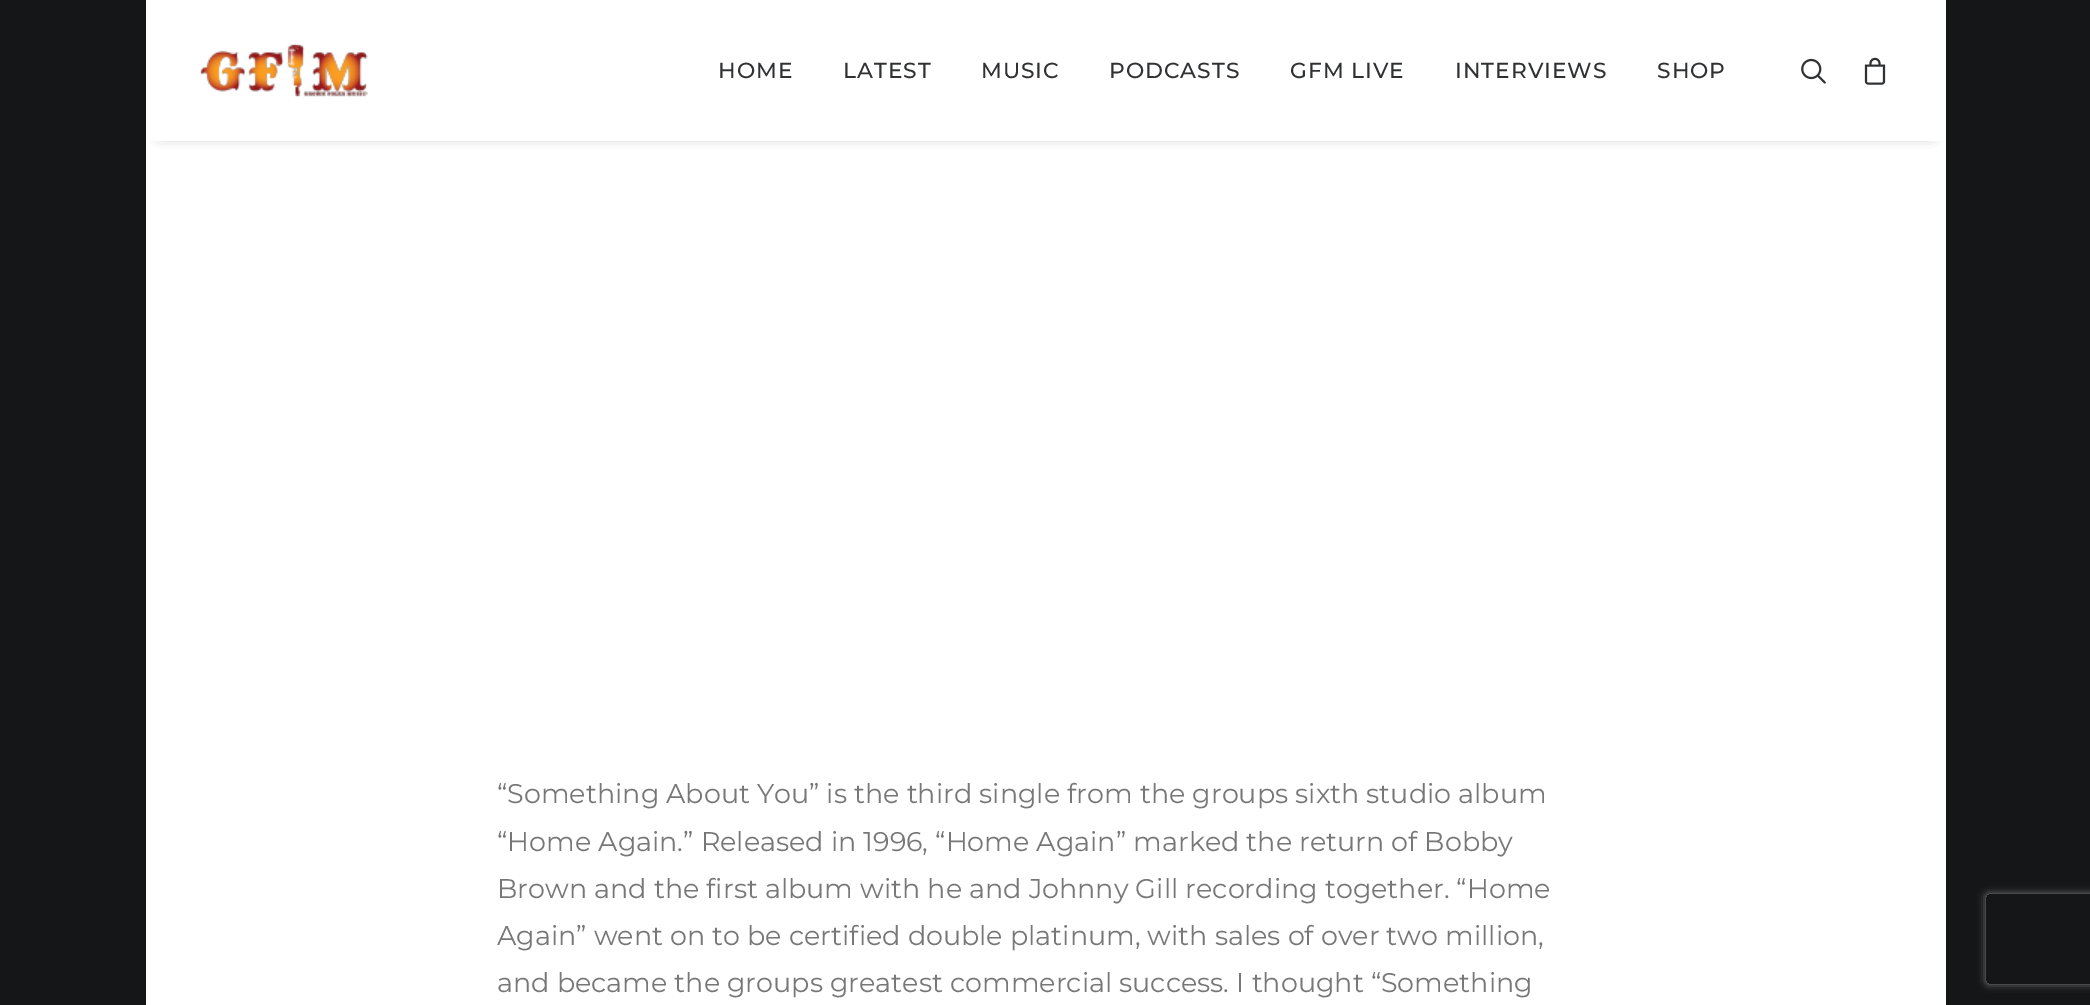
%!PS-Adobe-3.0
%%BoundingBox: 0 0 2090 1005
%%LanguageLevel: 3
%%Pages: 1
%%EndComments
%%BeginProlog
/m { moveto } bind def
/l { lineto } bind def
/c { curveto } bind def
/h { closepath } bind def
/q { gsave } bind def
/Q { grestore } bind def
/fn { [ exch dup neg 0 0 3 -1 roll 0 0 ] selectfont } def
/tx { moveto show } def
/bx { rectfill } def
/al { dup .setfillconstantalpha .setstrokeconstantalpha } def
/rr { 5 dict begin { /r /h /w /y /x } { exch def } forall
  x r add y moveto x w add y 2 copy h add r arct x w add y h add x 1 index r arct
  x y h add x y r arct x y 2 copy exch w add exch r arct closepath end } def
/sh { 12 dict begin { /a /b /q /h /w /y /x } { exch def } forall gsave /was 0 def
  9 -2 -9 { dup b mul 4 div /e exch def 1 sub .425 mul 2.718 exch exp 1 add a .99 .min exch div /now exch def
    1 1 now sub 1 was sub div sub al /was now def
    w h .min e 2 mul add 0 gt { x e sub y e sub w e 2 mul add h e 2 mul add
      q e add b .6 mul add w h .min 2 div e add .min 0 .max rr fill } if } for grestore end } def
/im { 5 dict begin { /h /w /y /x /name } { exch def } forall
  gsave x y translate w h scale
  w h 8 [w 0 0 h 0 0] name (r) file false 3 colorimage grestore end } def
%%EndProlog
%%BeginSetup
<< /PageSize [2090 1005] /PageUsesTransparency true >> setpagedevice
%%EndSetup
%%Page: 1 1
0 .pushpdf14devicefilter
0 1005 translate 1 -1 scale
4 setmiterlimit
0.078 0.086 0.094 setrgbcolor
0 0 2090 1005 bx
1 setgray
146 141 1800 864 bx
0 setgray
161 21 1770 111 0 7.5 0.6 sh
1 setgray
146 0 1800 141 bx
(image0.raw) 200 43 168 54 im
/Montserrat-Medium 21.75 fn
0.188 0.192 0.2 setrgbcolor
718 78 m 1 0 (HOME) ashow
843 78 m 1 0 (LATEST) ashow
981 78 m 1 0 (MUSIC) ashow
1109 78 m 1 0 (PODCASTS) ashow
1290 78 m 1 0 (GFM LIVE) ashow
1455 78 m 1 0 (INTERVIEWS) ashow
1657 78 m 1 0 (SHOP) ashow
(image1.raw) 1801 58 25 26 im
(image2.raw) 1864 57 22 28 im
/Montserrat-Regular 27 fn
0.467 setgray
(“Something About You” is the third single from the groups sixth studio album) 497 803 tx
(“Home Again.” Released in 1996, “Home Again” marked the return of Bobby) 497 851 tx
(Brown and the first album with he and Johnny Gill recording together. “Home) 497 898 tx
(Again” went on to be certified double platinum, with sales of over two million,) 497 945 tx
(and became the groups greatest commercial success. I thought “Something) 497 992 tx
q
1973 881 m 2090 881 l 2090 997 l 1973 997 l h 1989 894 m 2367 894 l 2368.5 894 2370 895.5 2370 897 c 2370 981 l 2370 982.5 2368.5 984 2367 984 c 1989 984 l 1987.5 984 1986 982.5 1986 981 c 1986 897 l 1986 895.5 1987.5 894 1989 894 c h eoclip newpath
0.502 setgray
1986 894 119 90 3 4 1 sh
Q
.poppdf14devicefilter showpage
%%EOF
